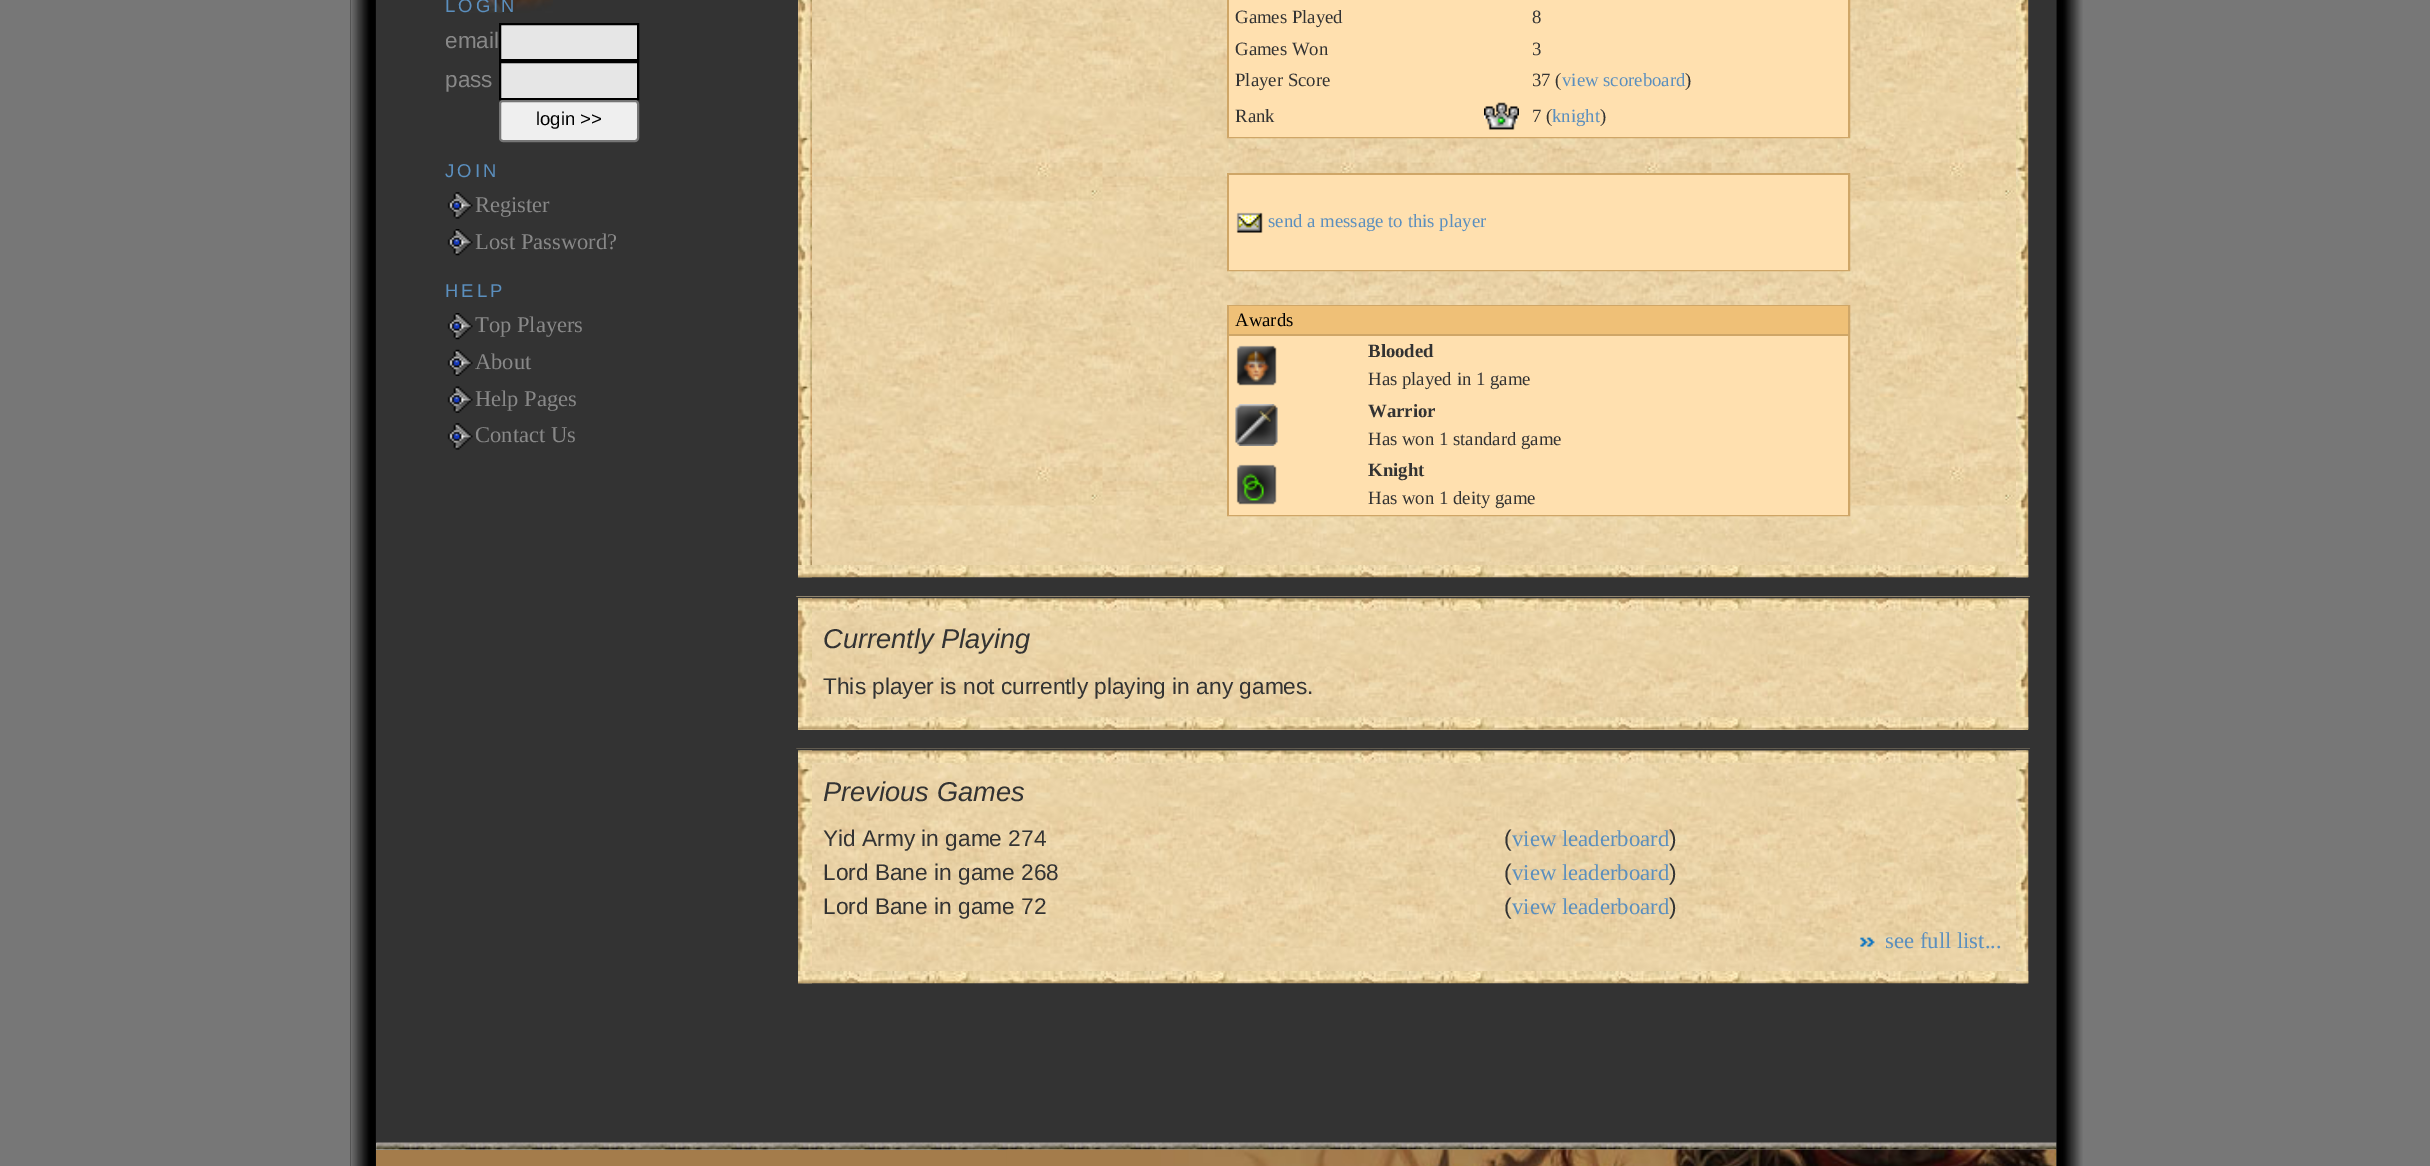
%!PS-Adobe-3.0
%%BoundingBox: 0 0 2430 1166
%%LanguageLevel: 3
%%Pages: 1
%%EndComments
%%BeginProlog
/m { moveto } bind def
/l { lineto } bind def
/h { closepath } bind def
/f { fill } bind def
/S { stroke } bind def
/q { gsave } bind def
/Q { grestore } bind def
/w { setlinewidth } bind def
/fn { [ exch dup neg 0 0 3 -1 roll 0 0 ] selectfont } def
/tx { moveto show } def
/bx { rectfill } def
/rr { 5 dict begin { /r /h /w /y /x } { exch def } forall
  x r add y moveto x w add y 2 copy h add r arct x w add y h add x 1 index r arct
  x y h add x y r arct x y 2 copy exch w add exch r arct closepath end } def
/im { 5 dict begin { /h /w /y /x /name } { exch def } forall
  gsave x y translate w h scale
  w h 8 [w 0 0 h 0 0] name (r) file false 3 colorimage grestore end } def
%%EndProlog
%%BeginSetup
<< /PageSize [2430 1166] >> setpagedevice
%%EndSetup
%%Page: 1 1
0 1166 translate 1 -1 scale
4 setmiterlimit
0.467 setgray
0 0 2430 1166 bx
(image0.raw) 350 0 26 1166 im
(image1.raw) 2056 0 27 1166 im
0.2 setgray
376 0 1680 1143 bx
(image2.raw) 466 0 87 13 im
/LiberationSans-Regular 18.5 fn
0.357 0.561 0.745 setrgbcolor
445 12 m 3 0 (LOGIN) ashow
/LiberationSans-Regular 22.5 fn
0.533 setgray
(email) 445 48 tx
0.902 setgray
500 24 m 638 24 l 638 60 l 500 60 l h q f Q
0 setgray
2 w
S
0.533 setgray
(pass) 445 87 tx
0.902 setgray
500 62 m 638 62 l 638 99 l 500 99 l h q f Q
0 setgray
S
0.937 setgray
500 101 138 40 3 rr q f Q
0.463 setgray
S
/LiberationSans-Regular 18.5 fn
0 setgray
(login >>) 536 125 tx
0.357 0.561 0.745 setrgbcolor
445 177 m 3 0 (JOIN) ashow
(image3.raw) 447 192 26 27 im
/LiberationSerif-Regular 22.5 fn
0.533 setgray
(Register) 475 212 tx
(image4.raw) 447 229 26 27 im
(Lost Password?) 475 249 tx
/LiberationSans-Regular 18.5 fn
0.357 0.561 0.745 setrgbcolor
445 297 m 3 0 (HELP) ashow
(image4.raw) 447 313 26 27 im
/LiberationSerif-Regular 22.5 fn
0.533 setgray
(Top Players) 475 332 tx
(image5.raw) 447 349 26 27 im
(About) 475 369 tx
(image6.raw) 447 386 26 27 im
(Help Pages) 475 406 tx
(image3.raw) 447 423 26 27 im
(Contact Us) 475 442 tx
(image7.raw) 812 0 1204 565 im
(image8.raw) 798 0 14 578 im
(image9.raw) 2016 0 13 578 im
(image10.raw) 798 565 1231 13 im
0.812 0.651 0.404 setrgbcolor
1228 -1 621 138 rectstroke
1 0.878 0.686 setrgbcolor
1229 0 619 2 bx
1229 2 619 31 bx
/LiberationSerif-Regular 18.75 fn
0.2 setgray
(Games Played) 1235 23 tx
(8) 1532 23 tx
1 0.878 0.686 setrgbcolor
1229 33 619 32 bx
0.2 setgray
(Games Won) 1235 55 tx
(3) 1532 55 tx
1 0.878 0.686 setrgbcolor
1229 65 619 31 bx
0.2 setgray
(Player Score) 1235 86 tx
(37 \() 1532 86 tx
0.357 0.561 0.745 setrgbcolor
(view scoreboard) 1562 86 tx
0.2 setgray
(\)) 1685 86 tx
1 0.878 0.686 setrgbcolor
1229 96 619 41 bx
0.2 setgray
(Rank) 1235 122 tx
(image11.raw) 1484 102 35 28 im
(7 \() 1532 122 tx
0.357 0.561 0.745 setrgbcolor
(knight) 1552 122 tx
0.2 setgray
(\)) 1600 122 tx
0.812 0.651 0.404 setrgbcolor
1228 174 621 96 rectstroke
1 0.878 0.686 setrgbcolor
1229 175 619 95 bx
(image12.raw) 1236 212 27 21 im
0.357 0.561 0.745 setrgbcolor
(send a message to this player) 1268 227 tx
0.812 0.651 0.404 setrgbcolor
1228 306 621 209 rectstroke
0.937 0.753 0.467 setrgbcolor
1229 306 619 28 bx
0.812 0.651 0.404 setrgbcolor
1229 334 619 2 bx
0 setgray
(Awards) 1235 326 tx
1 0.878 0.686 setrgbcolor
1229 336 619 60 bx
(image13.raw) 1236 345 41 41 im
/LiberationSerif-Bold 18.75 fn
0.2 setgray
(Blooded) 1368 357 tx
/LiberationSerif-Regular 18.75 fn
(Has played in 1 game) 1368 385 tx
1 0.878 0.686 setrgbcolor
1229 396 619 59 bx
(image14.raw) 1235 404 43 42 im
/LiberationSerif-Bold 18.75 fn
0.2 setgray
(Warrior) 1368 417 tx
/LiberationSerif-Regular 18.75 fn
(Has won 1 standard game) 1368 445 tx
1 0.878 0.686 setrgbcolor
1229 455 619 60 bx
(image15.raw) 1236 464 41 41 im
/LiberationSerif-Bold 18.75 fn
0.2 setgray
(Knight) 1368 476 tx
/LiberationSerif-Regular 18.75 fn
(Has won 1 deity game) 1368 504 tx
(image16.raw) 796 596 1234 134 im
797 598 1232 133 rectstroke
(image17.raw) 798 598 14 132 im
(image18.raw) 2016 598 13 132 im
(image19.raw) 798 598 1231 13 im
(image20.raw) 798 717 1231 13 im
/LiberationSans-Italic 27.25 fn
(Currently Playing) 823 648 tx
/LiberationSans-Regular 22.7 fn
(This player is not currently playing in any games.) 823 694 tx
(image21.raw) 796 748 1234 223 im
797 750 1232 234 rectstroke
(image22.raw) 798 750 14 234 im
(image23.raw) 2016 750 13 234 im
(image24.raw) 798 750 1231 13 im
(image25.raw) 798 971 1231 13 im
/LiberationSans-Italic 27.25 fn
(Previous Games) 823 801 tx
/LiberationSans-Regular 22.7 fn
(Yid Army in game 274) 823 846 tx
(\() 1504 846 tx
/LiberationSerif-Regular 22.7 fn
0.357 0.561 0.745 setrgbcolor
(view leaderboard) 1512 846 tx
/LiberationSans-Regular 22.7 fn
0.2 setgray
(\)) 1669 846 tx
(Lord Bane in game 268) 823 880 tx
(\() 1504 880 tx
/LiberationSerif-Regular 22.7 fn
0.357 0.561 0.745 setrgbcolor
(view leaderboard) 1512 880 tx
/LiberationSans-Regular 22.7 fn
0.2 setgray
(\)) 1669 880 tx
(Lord Bane in game 72) 823 914 tx
(\() 1504 914 tx
/LiberationSerif-Regular 22.7 fn
0.357 0.561 0.745 setrgbcolor
(view leaderboard) 1512 914 tx
/LiberationSans-Regular 22.7 fn
0.2 setgray
(\)) 1669 914 tx
(image26.raw) 1859 937 16 10 im
/LiberationSerif-Regular 22.7 fn
0.357 0.561 0.745 setrgbcolor
(see full list...) 1885 948 tx
0.8 setgray
376 1143 1680 7 bx
(image27.raw) 376 1142 1681 8 im
0.643 0.486 0.294 setrgbcolor
376 1150 631 16 bx
(image28.raw) 1006 1149 1051 17 im
showpage
%%EOF
